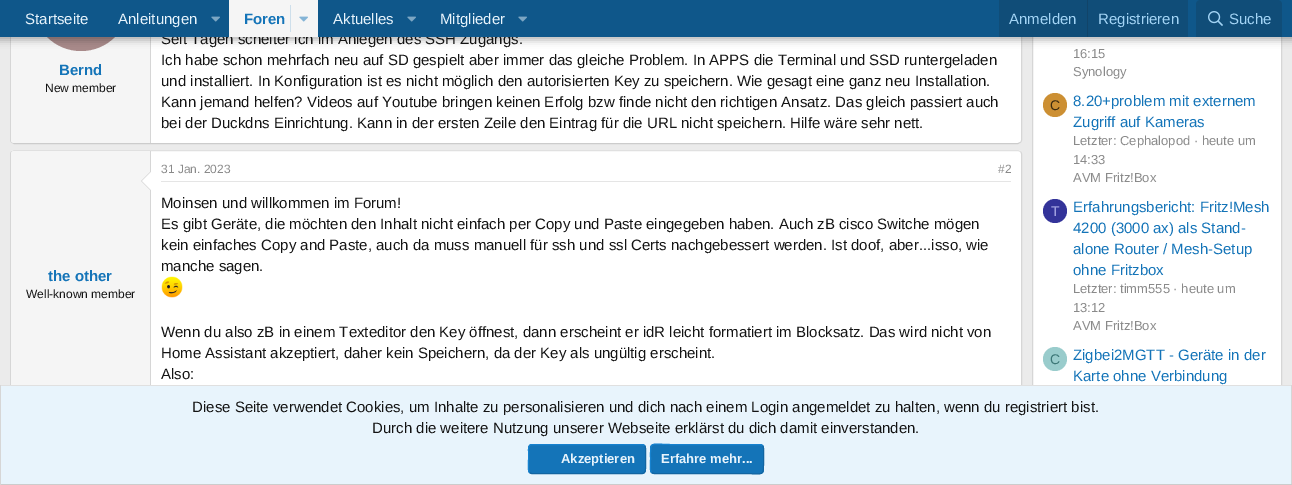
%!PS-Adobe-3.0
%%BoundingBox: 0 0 1292 485
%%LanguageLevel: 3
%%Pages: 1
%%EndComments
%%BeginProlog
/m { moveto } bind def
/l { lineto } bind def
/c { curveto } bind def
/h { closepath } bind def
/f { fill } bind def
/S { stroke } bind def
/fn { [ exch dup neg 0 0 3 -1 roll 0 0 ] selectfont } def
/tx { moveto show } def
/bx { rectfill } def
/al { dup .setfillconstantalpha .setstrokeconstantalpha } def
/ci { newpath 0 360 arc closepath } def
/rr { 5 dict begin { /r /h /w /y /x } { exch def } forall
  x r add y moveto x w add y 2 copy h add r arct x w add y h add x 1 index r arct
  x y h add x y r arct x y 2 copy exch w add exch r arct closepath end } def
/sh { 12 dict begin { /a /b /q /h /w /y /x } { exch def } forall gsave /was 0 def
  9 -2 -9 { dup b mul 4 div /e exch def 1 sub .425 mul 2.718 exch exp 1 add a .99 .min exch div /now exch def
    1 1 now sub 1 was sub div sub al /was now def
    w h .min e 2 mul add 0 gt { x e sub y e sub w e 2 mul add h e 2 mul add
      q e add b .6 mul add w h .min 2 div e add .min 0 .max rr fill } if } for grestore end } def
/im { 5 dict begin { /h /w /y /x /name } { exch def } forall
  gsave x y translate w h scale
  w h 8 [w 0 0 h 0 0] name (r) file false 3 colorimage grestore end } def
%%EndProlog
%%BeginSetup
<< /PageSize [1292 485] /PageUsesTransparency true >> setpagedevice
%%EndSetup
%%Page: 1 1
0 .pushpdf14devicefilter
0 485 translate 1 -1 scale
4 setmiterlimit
0.922 setgray
0 0 1292 485 bx
1 setgray
10 -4 1012 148 4 rr f
0.839 setgray
1020.5 -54.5 m 1021 -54 1021.5 -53 1021.5 -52 c 1021.5 140 l 1021.5 141 1021 142 1020.5 142.5 c S
0.8 setgray
1020.5 142.5 m 1018 143.5 l 14 143.5 l 11.5 142.5 l S
0.839 setgray
11.5 142.5 m 11 142 10.5 141 10.5 140 c 10.5 -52 l 10.5 -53 11 -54 11.5 -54.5 c S
0.961 setgray
14 -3 m 151 -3 l 151 143 l 14 143 l 12.5 143 11 141.5 11 140 c 11 0 l 11 -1.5 12.5 -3 14 -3 c h f
0.839 setgray
150 37 1 106 bx
0.659 0.541 0.541 setrgbcolor
81 3 48 ci f
1 setgray
1033 37 248 348 bx
0.839 setgray
1280.5 -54.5 m 1281.5 -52 l 1281.5 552 l 1280.5 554.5 l S
1033.5 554.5 m 1032.5 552 l 1032.5 -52 l 1033.5 -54.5 l S
0 setgray
-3 -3 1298 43 0 4 0.3 sh
/LiberationSans-Regular 15 fn
0.078 setgray
(Seit Tagen scheiter ich im Anlegen des SSH Zugangs.) 161 44 tx
0.059 0.341 0.541 setrgbcolor
0 0 1292 37 bx
0.91 0.957 0.988 setrgbcolor
(Startseite) 25 24 tx
(Anleitungen) 118 24 tx
(image0.raw) 211 16 9 6 im
0.961 setgray
229 0 89 37 bx
/LiberationSans-Bold 15 fn
0.078 0.455 0.722 setrgbcolor
(Foren) 244 24 tx
0.808 0.875 0.922 setrgbcolor
290 5 1 27 bx
(image1.raw) 299 16 9 6 im
/LiberationSans-Regular 15 fn
0.91 0.957 0.988 setrgbcolor
(Aktuelles) 333 24 tx
(image0.raw) 407 16 9 6 im
(Mitglieder) 440 24 tx
(image0.raw) 518 16 9 6 im
0.063 0.302 0.471 setrgbcolor
999 0 189 37 bx
0.639 0.831 0.961 setrgbcolor
(Anmelden) 1009 24 tx
0.067 0.267 0.412 setrgbcolor
1087 0 1 37 bx
0.639 0.831 0.961 setrgbcolor
(Registrieren) 1098 24 tx
0.063 0.302 0.471 setrgbcolor
1200 0 m 1278 0 l 1280 0 1282 2 1282 4 c 1282 37 l 1196 37 l 1196 4 l 1196 2 1198 0 1200 0 c h f
(image2.raw) 1208 11 15 15 im
0.639 0.831 0.961 setrgbcolor
(Suche) 1229 24 tx
/LiberationSans-Bold 15 fn
0.078 0.455 0.722 setrgbcolor
(Bernd) 59 75 tx
/LiberationSans-Regular 12 fn
0.078 setgray
(New member) 45 92 tx
/LiberationSans-Regular 15 fn
(Ich habe schon mehrfach neu auf SD gespielt aber immer das gleiche Problem. In APPS die Terminal und SSD runtergeladen) 161 65 tx
(und installiert. In Konfiguration ist es nicht möglich den autorisierten Key zu speichern. Wie gesagt eine ganz neu Installation.) 161 86 tx
(Kann jemand helfen? Videos auf Youtube bringen keinen Erfolg bzw finde nicht den richtigen Ansatz. Das gleich passiert auch) 161 107 tx
(bei der Duckdns Einrichtung. Kann in der ersten Zeile den Eintrag für die URL nicht speichern. Hilfe wäre sehr nett.) 161 128 tx
1 setgray
10 150 1012 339 4 rr f
0.878 setgray
11.5 151.5 m 14 150.5 l 1018 150.5 l 1020.5 151.5 l S
0.839 setgray
1020.5 151.5 m 1021 152 1021.5 153 1021.5 154 c 1021.5 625 l 1021.5 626 1021 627 1020.5 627.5 c S
11.5 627.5 m 11 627 10.5 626 10.5 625 c 10.5 154 l 10.5 153 11 152 11.5 151.5 c S
0.961 setgray
14 151 m 151 151 l 151 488 l 14 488 l 12.5 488 11 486.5 11 485 c 11 154 l 11 152.5 12.5 151 14 151 c h f
0.839 setgray
150 151 1 234 bx
151 171 m 151 191 l 141 181 l h f
1 setgray
151 172 m 151 190 l 142 181 l h f
/LiberationSans-Bold 15 fn
0.078 0.455 0.722 setrgbcolor
(the other) 48 281 tx
/LiberationSans-Regular 12 fn
0.078 setgray
(Well-known member) 26 298 tx
0.898 setgray
161 181 850 1 bx
0.541 setgray
(31 Jan. 2023) 161 173 tx
(#2) 998 173 tx
/LiberationSans-Regular 15 fn
0.078 setgray
(Moinsen und willkommen im Forum!) 161 208 tx
(Es gibt Geräte, die möchten den Inhalt nicht einfach per Copy und Paste eingegeben haben. Auch zB cisco Switche mögen) 161 229 tx
(kein einfaches Copy and Paste, auch da muss manuell für ssh und ssl Certs nachgebessert werden. Ist doof, aber...isso, wie) 161 250 tx
(manche sagen.) 161 271 tx
(image3.raw) 161 276 22 22 im
(Wenn du also zB in einem Texteditor den Key öffnest, dann erscheint er idR leicht formatiert im Blocksatz. Das wird nicht von) 161 337 tx
(Home Assistant akzeptiert, daher kein Speichern, da der Key als ungültig erscheint.) 161 358 tx
(Also:) 161 379 tx
/LiberationSans-Regular 13 fn
0.541 setgray
(16:15) 1073 58 tx
(Synology) 1073 76 tx
0.8 0.561 0.2 setrgbcolor
1055 105 12 ci f
/LiberationSans-Regular 14 fn
0.239 0.169 0.059 setrgbcolor
(C) 1050 110 tx
/LiberationSans-Regular 15 fn
0.078 0.455 0.722 setrgbcolor
(8.20+problem mit externem) 1073 106 tx
(Zugriff auf Kameras) 1073 127 tx
/LiberationSans-Regular 13 fn
0.541 setgray
(Letzter: Cephalopod · heute um) 1073 145 tx
(14:33) 1073 164 tx
(AVM Fritz!Box) 1073 182 tx
0.2 0.2 0.6 setrgbcolor
1055 211 12 ci f
/LiberationSans-Regular 14 fn
0.624 0.624 0.875 setrgbcolor
(T) 1051 216 tx
/LiberationSans-Regular 15 fn
0.078 0.455 0.722 setrgbcolor
(Erfahrungsbericht: Fritz!Mesh) 1073 212 tx
(4200 \(3000 ax\) als Stand-) 1073 233 tx
(alone Router / Mesh-Setup) 1073 254 tx
(ohne Fritzbox) 1073 275 tx
/LiberationSans-Regular 13 fn
0.541 setgray
(Letzter: timm555 · heute um) 1073 293 tx
(13:12) 1073 312 tx
(AVM Fritz!Box) 1073 330 tx
0.6 0.8 0.8 setrgbcolor
1055 359 12 ci f
/LiberationSans-Regular 14 fn
0.235 0.467 0.467 setrgbcolor
(C) 1050 364 tx
/LiberationSans-Regular 15 fn
0.078 0.455 0.722 setrgbcolor
(Zigbei2MGTT - Geräte in der) 1073 360 tx
(Karte ohne Verbindung) 1073 381 tx
0.91 0.957 0.988 setrgbcolor
1 386 1290 98 bx
0.878 setgray
0 385 1292 1 bx
0.839 setgray
1291 385 1 100 bx
0.8 setgray
0 484 1292 1 bx
0.839 setgray
0 385 1 100 bx
0.078 setgray
(Diese Seite verwendet Cookies, um Inhalte zu personalisieren und dich nach einem Login angemeldet zu halten, wenn du registriert bist.) 192 412 tx
(Durch die weitere Nutzung unserer Webseite erklärst du dich damit einverstanden.) 372 433 tx
0.078 0.455 0.722 setrgbcolor
528 444 118 30 4 rr f
0.071 0.396 0.631 setrgbcolor
644.5 445.5 m 646.5 447.5 645.5 456 645.5 459 c 645.5 466.5 l 645.5 469 646 473.5 642 473.5 c 531.5 473.5 l 529.5 472.5 l S
0.09 0.51 0.812 setrgbcolor
529.5 472.5 m 527.5 470.5 528.5 462 528.5 459 c 528.5 451.5 l 528.5 449 528 444.5 532 444.5 c 642.5 444.5 l 644.5 445.5 l S
/LiberationSans-Bold 13 fn
0.91 0.957 0.988 setrgbcolor
(Akzeptieren) 561 463 tx
0.078 0.455 0.722 setrgbcolor
650 444 114 30 4 rr f
0.071 0.396 0.631 setrgbcolor
762.5 445.5 m 764.5 447.5 763.5 456 763.5 459 c 763.5 478 765 473.5 742.5 473.5 c 654 473.5 l 651.5 472.5 l S
0.09 0.51 0.812 setrgbcolor
651.5 472.5 m 649.5 470.5 650.5 462 650.5 459 c 650.5 440 649 444.5 671.5 444.5 c 760 444.5 l 762.5 445.5 l S
0.91 0.957 0.988 setrgbcolor
(Erfahre mehr...) 661 463 tx
.poppdf14devicefilter showpage
%%EOF
